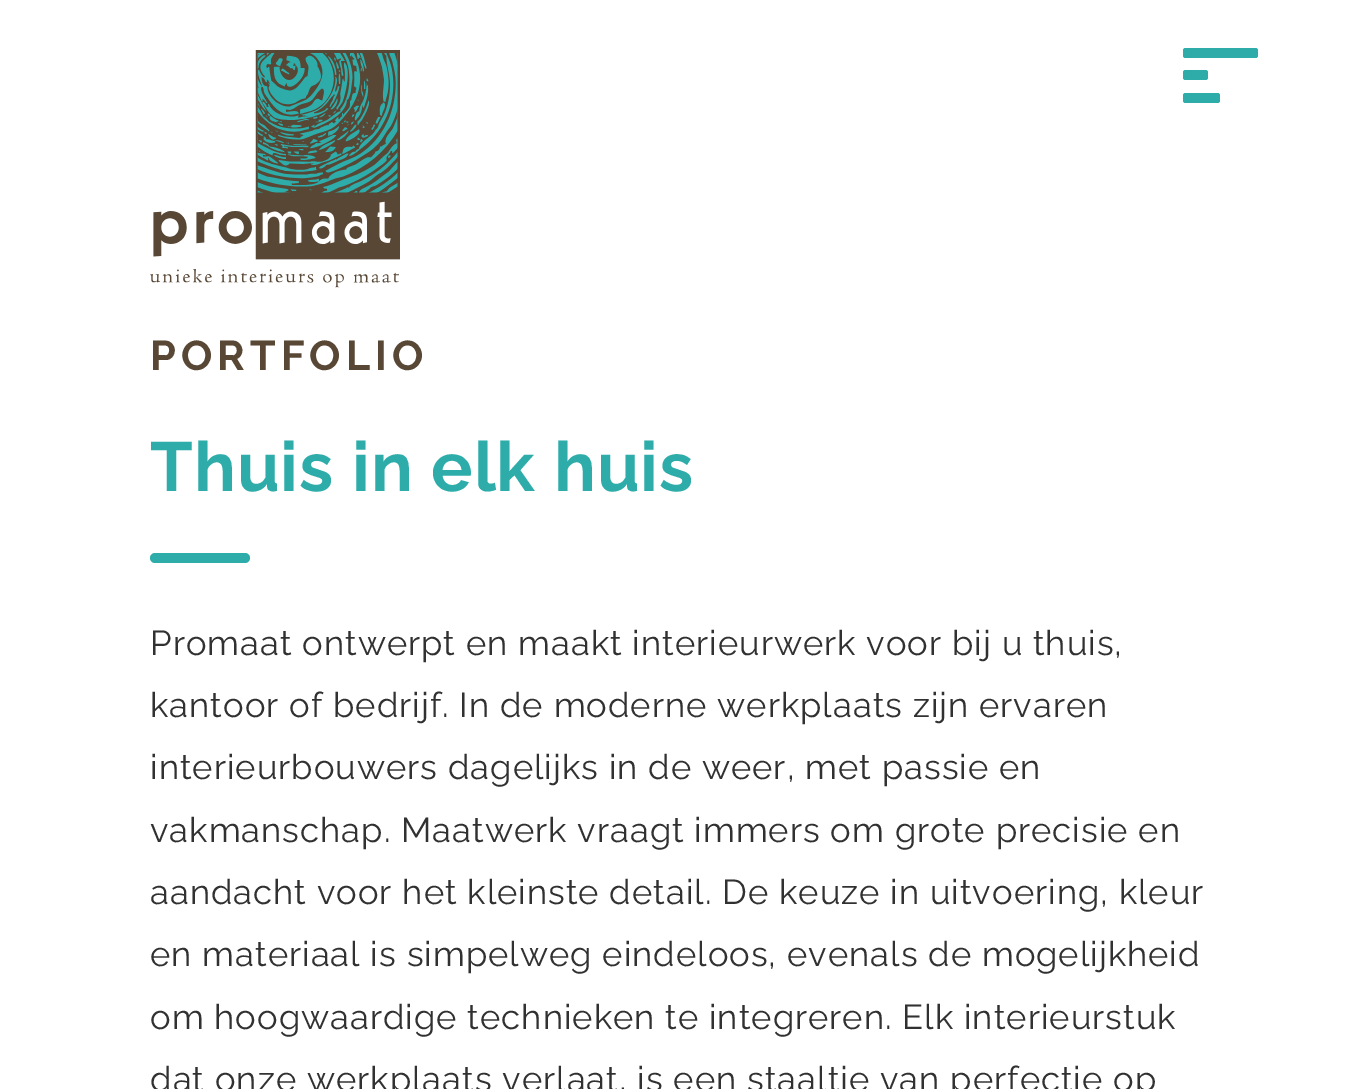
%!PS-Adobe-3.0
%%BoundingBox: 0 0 1370 1089
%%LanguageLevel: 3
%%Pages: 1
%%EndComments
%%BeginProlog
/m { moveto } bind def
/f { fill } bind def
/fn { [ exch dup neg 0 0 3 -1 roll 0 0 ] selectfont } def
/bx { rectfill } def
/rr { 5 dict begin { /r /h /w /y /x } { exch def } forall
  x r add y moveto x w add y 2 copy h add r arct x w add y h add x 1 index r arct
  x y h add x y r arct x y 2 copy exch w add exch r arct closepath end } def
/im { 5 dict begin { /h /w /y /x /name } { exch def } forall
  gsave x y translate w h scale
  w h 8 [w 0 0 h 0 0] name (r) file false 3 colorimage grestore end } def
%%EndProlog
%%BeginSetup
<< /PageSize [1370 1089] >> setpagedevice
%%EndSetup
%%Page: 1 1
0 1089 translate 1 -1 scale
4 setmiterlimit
1 setgray
0 0 1370 1089 bx
(image0.raw) 150 50 250 238 im
0.176 0.675 0.667 setrgbcolor
1183 48 75 10 2.5 rr f
1183 70 25 10 2.5 rr f
1183 93 37 10 2.5 rr f
/Raleway-Bold 41.5 fn
0.345 0.278 0.208 setrgbcolor
150 370 m 5 0 (PORTFOLIO) ashow
/Raleway-Bold 69.25 fn
0.176 0.675 0.667 setrgbcolor
150 491 m 1 0 (Thuis in elk huis) ashow
150 553 100 10 5 rr f
/Raleway-Regular 34.6 fn
0.192 setgray
150 655 m 1 0 (Promaat ontwerpt en maakt interieurwerk voor bij u thuis,) ashow
150 717 m 1 0 (kantoor of bedrijf. In de moderne werkplaats zijn ervaren) ashow
150 779 m 1 0 (interieurbouwers dagelijks in de weer, met passie en) ashow
150 842 m 1 0 (vakmanschap. Maatwerk vraagt immers om grote precisie en) ashow
150 904 m 1 0 (aandacht voor het kleinste detail. De keuze in uitvoering, kleur) ashow
150 966 m 1 0 (en materiaal is simpelweg eindeloos, evenals de mogelijkheid) ashow
150 1029 m 1 0 (om hoogwaardige technieken te integreren. Elk interieurstuk) ashow
150 1091 m 1 0 (dat onze werkplaats verlaat, is een staaltje van perfectie op) ashow
showpage
%%EOF
